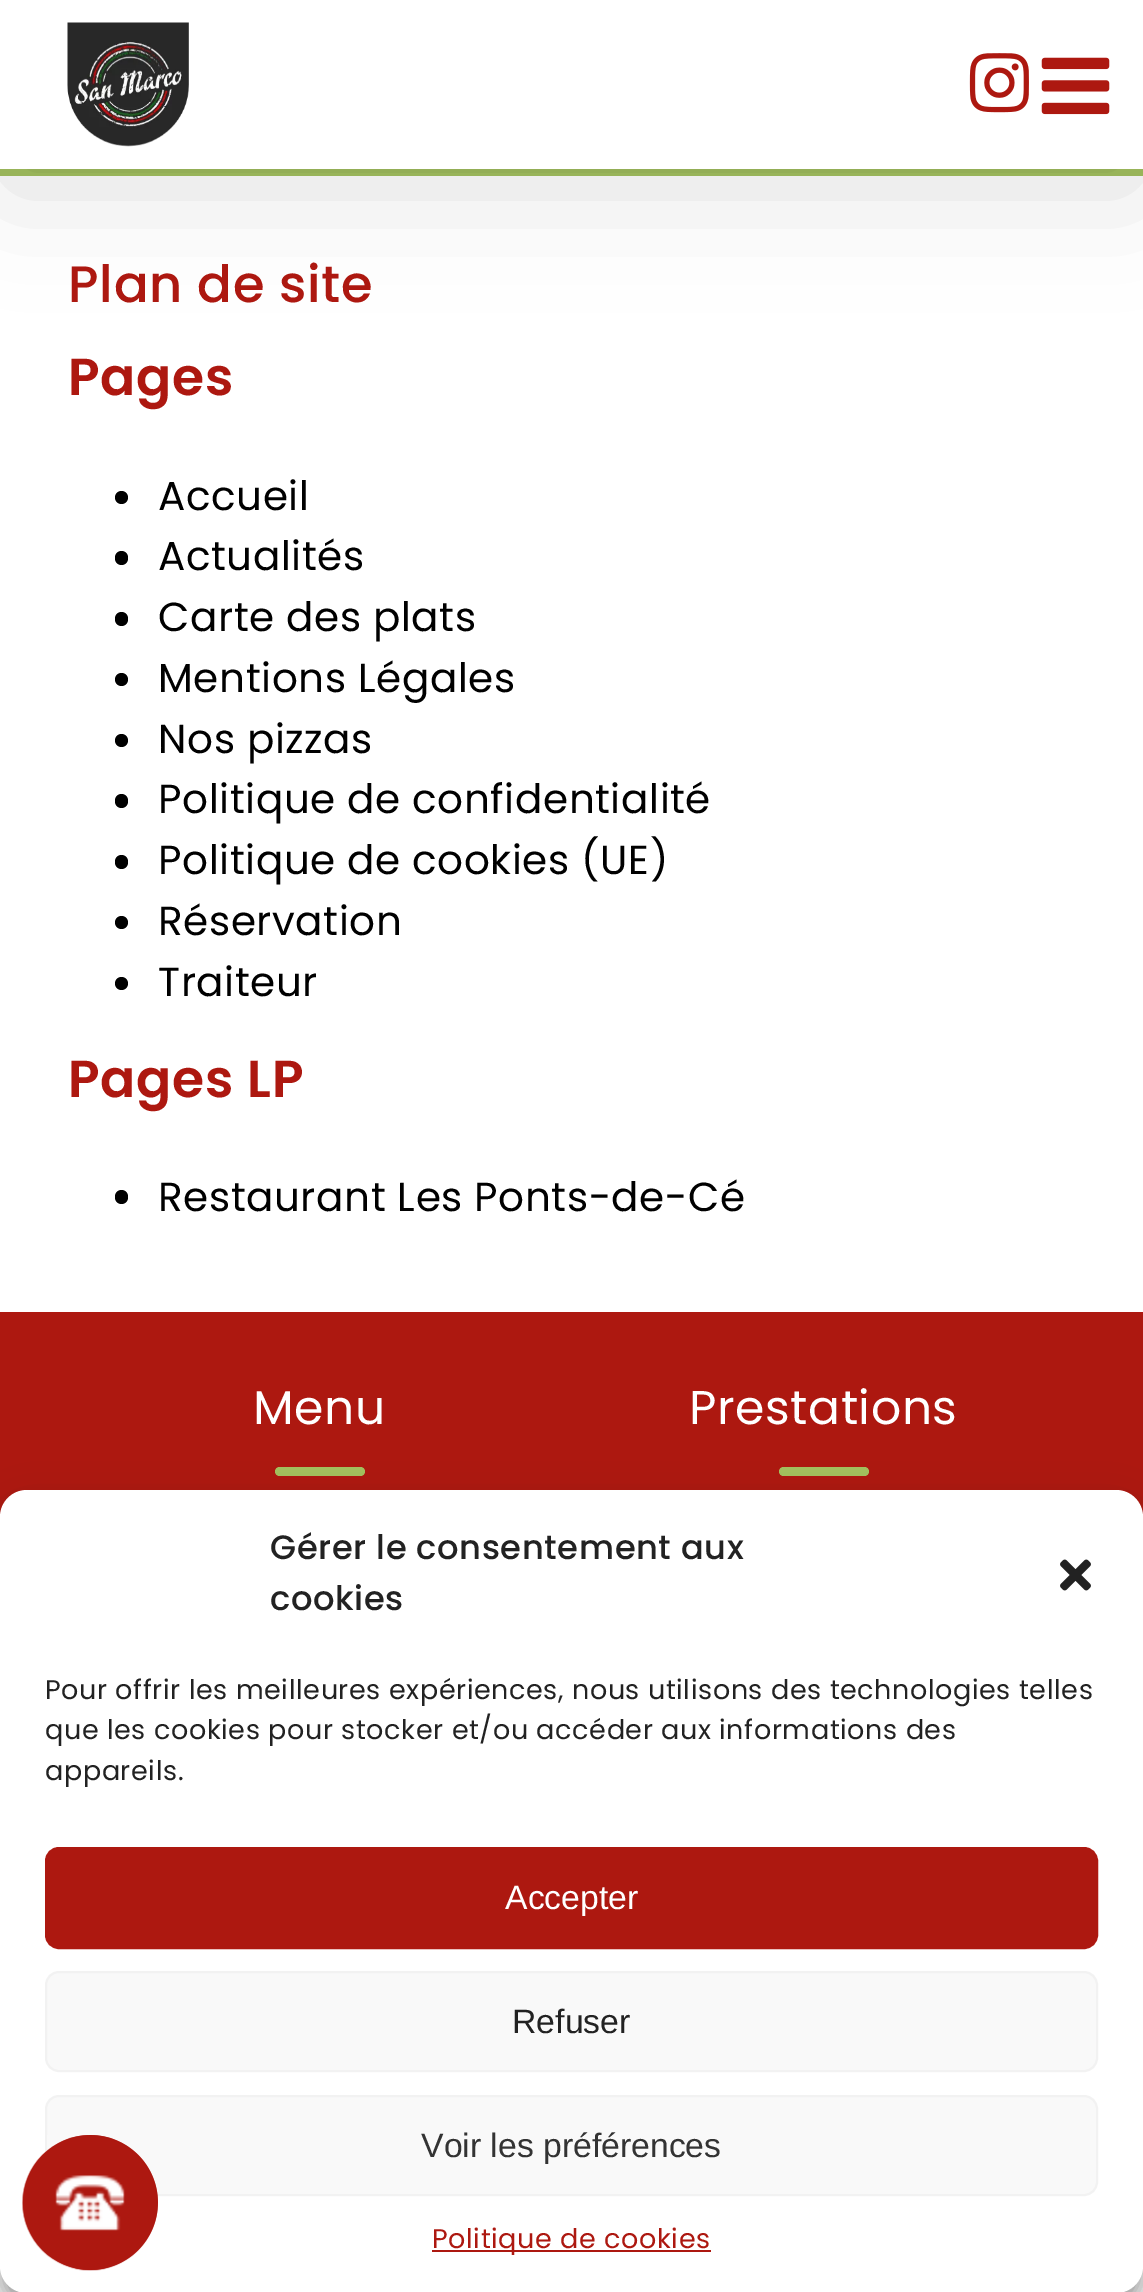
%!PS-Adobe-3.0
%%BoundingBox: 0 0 1143 2292
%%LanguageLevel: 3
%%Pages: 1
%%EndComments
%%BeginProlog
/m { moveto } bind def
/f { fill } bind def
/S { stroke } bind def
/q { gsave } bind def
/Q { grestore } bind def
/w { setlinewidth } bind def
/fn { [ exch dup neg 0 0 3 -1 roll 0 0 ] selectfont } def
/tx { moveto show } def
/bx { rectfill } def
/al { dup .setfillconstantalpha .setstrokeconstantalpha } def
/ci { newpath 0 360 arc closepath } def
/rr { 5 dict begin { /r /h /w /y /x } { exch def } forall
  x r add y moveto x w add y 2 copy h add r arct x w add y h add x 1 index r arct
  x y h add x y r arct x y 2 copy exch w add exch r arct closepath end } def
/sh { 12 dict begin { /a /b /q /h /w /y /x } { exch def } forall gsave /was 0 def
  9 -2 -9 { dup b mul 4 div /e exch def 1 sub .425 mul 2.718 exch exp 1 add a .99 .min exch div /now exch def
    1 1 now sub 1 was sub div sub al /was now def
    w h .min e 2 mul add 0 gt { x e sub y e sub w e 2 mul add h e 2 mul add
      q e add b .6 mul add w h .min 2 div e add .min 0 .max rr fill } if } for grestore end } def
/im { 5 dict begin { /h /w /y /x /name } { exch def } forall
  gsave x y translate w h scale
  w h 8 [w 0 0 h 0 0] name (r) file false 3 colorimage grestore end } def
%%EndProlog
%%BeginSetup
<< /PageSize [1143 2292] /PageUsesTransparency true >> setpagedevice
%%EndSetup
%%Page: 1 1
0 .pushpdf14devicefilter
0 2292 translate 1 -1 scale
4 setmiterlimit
1 setgray
0 0 1143 2292 bx
0.639 0.757 0.369 setrgbcolor
0 169 1143 7 bx
0 setgray
5 27 1134 160 0 56 0.14 sh
1 setgray
0 0 1143 169 bx
(image0.raw) 67 22 122 125 im
(image1.raw) 969 53 60 60 im
(image2.raw) 1041 57 69 58 im
/Poppins-Medium 51.25 fn
0.678 0.094 0.063 setrgbcolor
68 302 m 0.75 0 (Plan de site) ashow
/Poppins-SemiBold 52 fn
68 395 m 0.75 0 (Pages) ashow
0 setgray
121.5 497.5 6.5 ci f
/Poppins-Regular 40.5 fn
158 510 m 0.6 0 (Accueil) ashow
115 551 13 14 6.5 rr f
158 570 m 0.6 0 (Actualités) ashow
115 612 13 14 6.5 rr f
158 631 m 0.6 0 (Carte des plats) ashow
121.5 679.5 6.5 ci f
158 692 m 0.6 0 (Mentions Légales) ashow
121.5 740.5 6.5 ci f
158 753 m 0.6 0 (Nos pizzas) ashow
115 794 13 14 6.5 rr f
158 813 m 0.6 0 (Politique de confidentialité) ashow
115 855 13 14 6.5 rr f
158 874 m 0.6 0 (Politique de cookies \(UE\)) ashow
121.5 922.5 6.5 ci f
158 935 m 0.6 0 (Réservation) ashow
121.5 983.5 6.5 ci f
158 996 m 0.6 0 (Traiteur) ashow
/Poppins-SemiBold 52 fn
0.678 0.094 0.063 setrgbcolor
68 1097 m 0.75 0 (Pages LP) ashow
0 setgray
115 1190 13 14 6.5 rr f
/Poppins-Regular 40.5 fn
158 1211 m 0.6 0 (Restaurant Les Ponts-de-Cé) ashow
0.678 0.094 0.063 setrgbcolor
0 1312 1143 205 bx
/Poppins-Regular 47.25 fn
1 setgray
253 1424 m 0.6 0 (Menu) ashow
0.639 0.757 0.369 setrgbcolor
275 1467 90 9 4.5 rr f
1 setgray
689 1424 m 0.6 0 (Prestations) ashow
0.639 0.757 0.369 setrgbcolor
779 1467 90 9 4.5 rr f
0 setgray
0 1503 1143 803 27 7 0.23 sh
0 1512 1143 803 27 22.5 0.19 sh
1 setgray
0 1490 1143 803 27 rr f
/Poppins-Medium 33.75 fn
0.133 setgray
270 1559 m 0.6 0 (Gérer le consentement aux) ashow
270 1610 m 0.6 0 (cookies) ashow
(image3.raw) 1060 1559 31 32 im
/Poppins-Regular 27 fn
45 1699 m 0.6 0 (Pour offrir les meilleures expériences, nous utilisons des technologies telles) ashow
45 1739 m 0.6 0 (que les cookies pour stocker et/ou accéder aux informations des) ashow
45 1780 m 0.6 0 (appareils.) ashow
0.678 0.094 0.063 setrgbcolor
46 1848 1051 100 13 rr q f Q
2 w
S
/LiberationSans-Regular 33.75 fn
1 setgray
(Accepter) 505 1909 tx
0.976 setgray
46 1972 1051 99 13 rr q f Q
0.949 setgray
S
0.133 setgray
(Refuser) 512 2033 tx
0.976 setgray
46 2096 1051 99 13 rr q f Q
0.949 setgray
S
0.2 setgray
(Voir les préférences) 421 2157 tx
0.678 0.094 0.063 setrgbcolor
432 2250 279 2 bx
/Poppins-Regular 27 fn
432 2248 m 0.6 0 (Politique de cookies) ashow
90.5 2202.5 67.5 ci f
(image4.raw) 22 2135 136 136 im
.poppdf14devicefilter showpage
%%EOF
